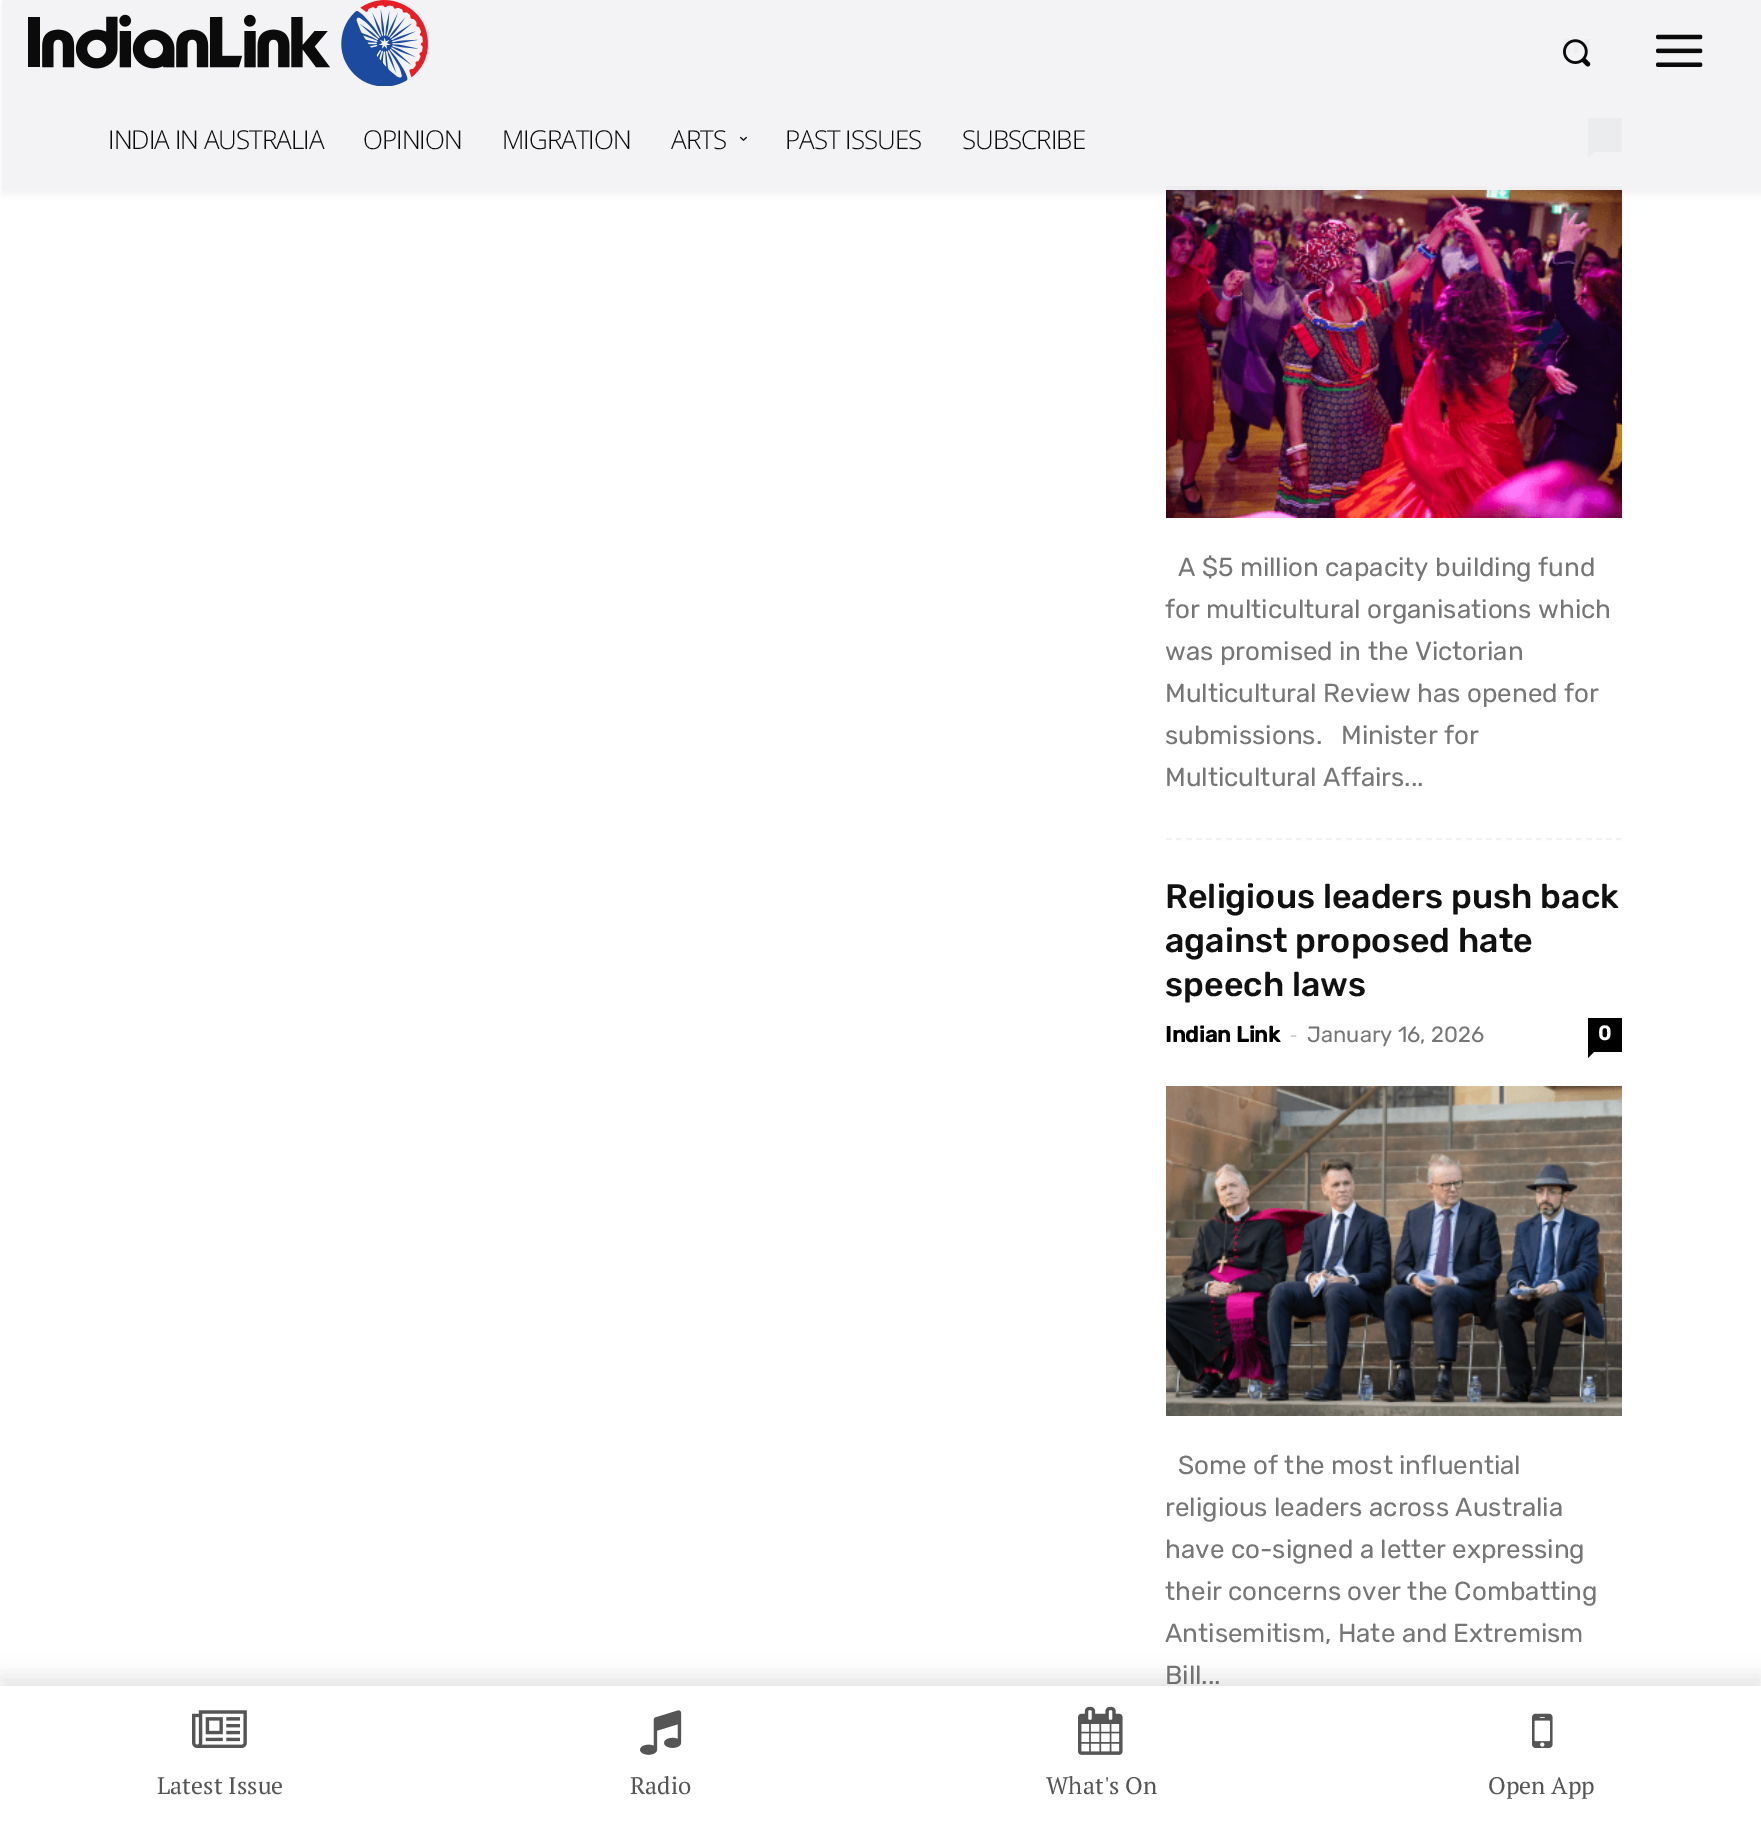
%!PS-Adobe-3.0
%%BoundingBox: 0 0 1761 1825
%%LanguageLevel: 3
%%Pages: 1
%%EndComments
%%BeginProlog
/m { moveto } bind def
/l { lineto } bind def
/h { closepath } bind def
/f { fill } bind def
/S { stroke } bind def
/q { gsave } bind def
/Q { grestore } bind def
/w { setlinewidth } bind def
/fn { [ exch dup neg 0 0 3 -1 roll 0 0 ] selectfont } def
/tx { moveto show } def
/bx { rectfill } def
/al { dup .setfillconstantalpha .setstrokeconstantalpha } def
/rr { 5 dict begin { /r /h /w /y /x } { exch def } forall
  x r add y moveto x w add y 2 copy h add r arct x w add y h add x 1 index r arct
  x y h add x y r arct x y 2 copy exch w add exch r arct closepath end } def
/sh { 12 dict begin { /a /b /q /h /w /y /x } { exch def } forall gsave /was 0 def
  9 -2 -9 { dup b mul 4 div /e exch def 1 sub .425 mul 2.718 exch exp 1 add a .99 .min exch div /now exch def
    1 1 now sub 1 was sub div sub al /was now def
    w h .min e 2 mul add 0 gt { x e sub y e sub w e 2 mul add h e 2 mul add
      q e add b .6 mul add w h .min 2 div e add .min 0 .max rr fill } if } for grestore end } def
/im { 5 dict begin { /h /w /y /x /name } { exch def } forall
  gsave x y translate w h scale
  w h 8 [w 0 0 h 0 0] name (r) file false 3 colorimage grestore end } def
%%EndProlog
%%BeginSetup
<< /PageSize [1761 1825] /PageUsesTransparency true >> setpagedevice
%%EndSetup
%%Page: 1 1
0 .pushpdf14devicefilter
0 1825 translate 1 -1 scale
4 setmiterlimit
1 setgray
0 0 1761 1825 bx
0 setgray
1588 118 34 34 bx
1588 152 m 1594 152 l 1588 158 l h f
(image4.raw) 1166 186 456 332 im
0.97 al
1 setgray
1166 118 456 72 bx
0.05 al
0.039 0.086 0.2 setrgbcolor
2 0 1759 190 bx
1 al
(image0.raw) 28 0 400 86 im
(image2.raw) 1656 34 47 33 im
q
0 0 m 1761 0 l 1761 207 l 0 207 l h 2 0 m 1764 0 l 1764 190 l 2 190 l h eoclip newpath
0 setgray
2 4 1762 190 0 4 0.06 sh
Q
(image1.raw) 1563 39 28 28 im
/OpenSans-Light 26 fn
0.039 setgray
108 149 m -1 0 (INDIA IN AUSTRALIA) ashow
363 149 m -1 0 (OPINION) ashow
502 149 m -1 0 (MIGRATION) ashow
671 149 m -1 0 (ARTS) ashow
(image3.raw) 740 136 7 5 im
785 149 m -1 0 (PAST ISSUES) ashow
962 149 m -1 0 (SUBSCRIBE) ashow
0.949 setgray
2 w
[6 4] 0 setdash
1166 839 m 1622 839 l S
/Rubik-Regular 26 fn
0.463 setgray
(A $5 million capacity building fund) 1178 576 tx
(for multicultural organisations which) 1165 618 tx
(was promised in the Victorian) 1165 660 tx
(Multicultural Review has opened for) 1165 702 tx
(submissions.) 1165 744 tx
(Minister for) 1341 744 tx
(Multicultural Affairs...) 1165 786 tx
/Rubik-Medium 34 fn
0.067 setgray
(Religious leaders push back) 1165 908 tx
(against proposed hate) 1165 952 tx
(speech laws) 1165 996 tx
/Rubik-Bold 22 fn
0 setgray
(Indian Link) 1165 1042 tx
/OpenSans-Regular 22 fn
0.8 setgray
(-) 1290 1042 tx
/Rubik-Regular 22 fn
0.463 setgray
(January 16, 2026) 1307 1042 tx
0 setgray
1588 1018 34 34 bx
/Rubik-Bold 20 fn
1 setgray
(0) 1598 1040 tx
0 setgray
1588 1052 m 1594 1052 l 1588 1058 l h f
(image5.raw) 1166 1086 456 330 im
/Rubik-Regular 26 fn
0.463 setgray
(Some of the most influential) 1178 1474 tx
(religious leaders across Australia) 1165 1516 tx
(have co-signed a letter expressing) 1165 1558 tx
(their concerns over the Combatting) 1165 1600 tx
(Antisemitism, Hate and Extremism) 1165 1642 tx
(Bill...) 1165 1684 tx
0 setgray
0 1676 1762 140 0 10 0.1 sh
1 setgray
0 1686 1761 139 bx
(image6.raw) 192 1710 55 38 im
/PTSerif-Regular 24 fn
0.333 setgray
(Latest Issue) 157 1794 tx
(image7.raw) 640 1710 42 45 im
(Radio) 630 1794 tx
(image8.raw) 1078 1706 45 49 im
(What's On) 1046 1794 tx
(image9.raw) 1532 1713 21 35 im
(Open App) 1488 1794 tx
.poppdf14devicefilter showpage
%%EOF
